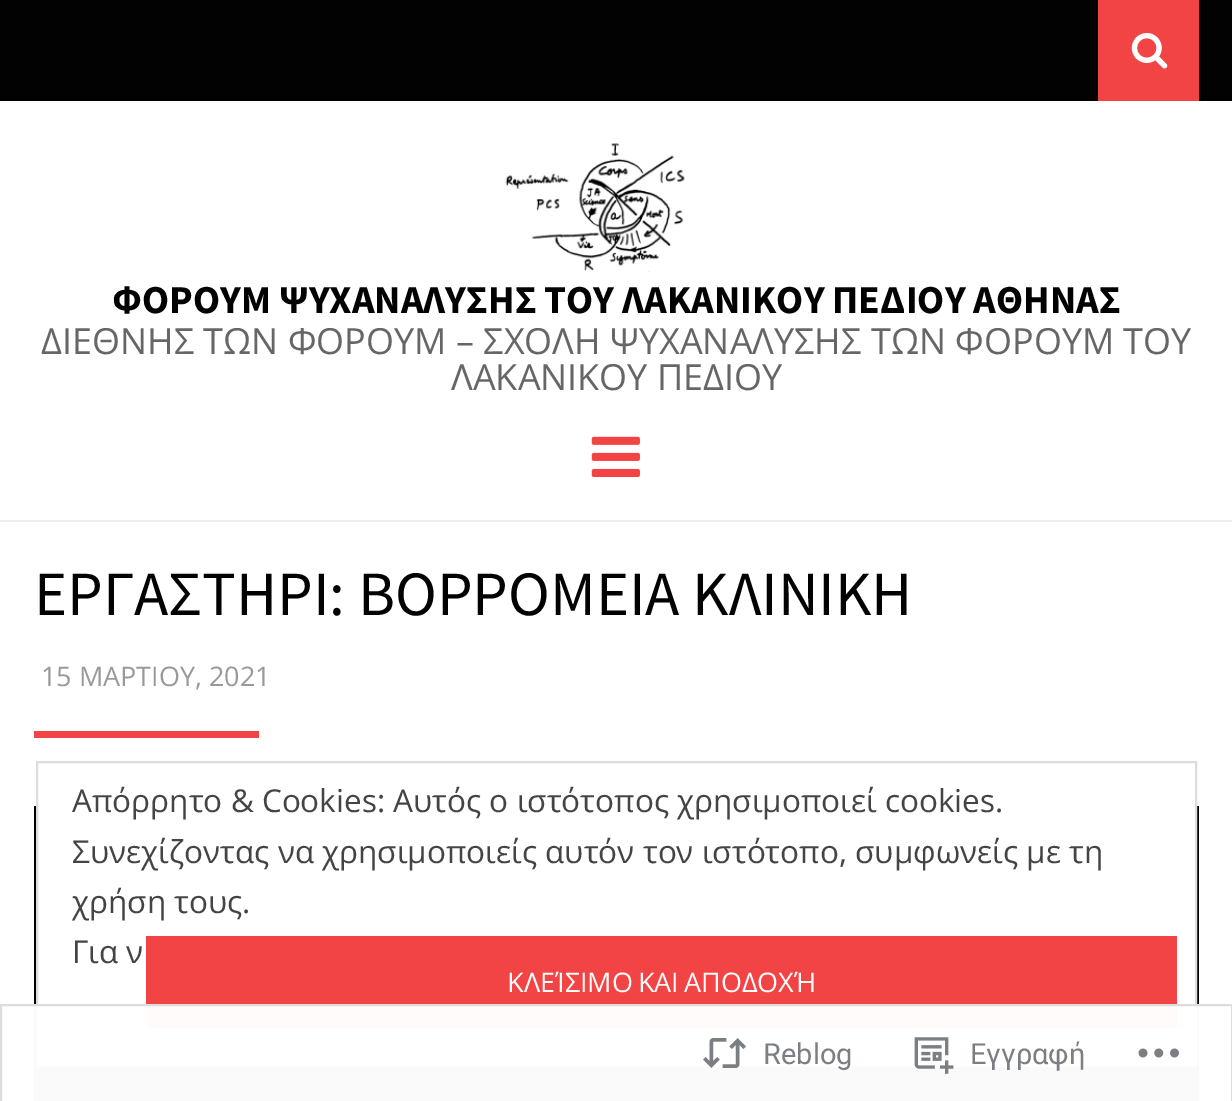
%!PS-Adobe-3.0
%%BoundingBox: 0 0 1232 1101
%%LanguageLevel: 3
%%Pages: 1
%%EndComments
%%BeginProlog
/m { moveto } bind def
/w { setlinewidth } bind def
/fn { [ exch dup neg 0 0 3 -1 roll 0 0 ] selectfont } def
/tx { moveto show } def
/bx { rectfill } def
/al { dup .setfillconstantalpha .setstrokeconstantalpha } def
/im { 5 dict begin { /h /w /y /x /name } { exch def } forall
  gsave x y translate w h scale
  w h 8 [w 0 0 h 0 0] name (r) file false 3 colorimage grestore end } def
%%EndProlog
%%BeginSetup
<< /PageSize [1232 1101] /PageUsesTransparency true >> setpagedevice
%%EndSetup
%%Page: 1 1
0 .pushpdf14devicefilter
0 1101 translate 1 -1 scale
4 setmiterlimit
1 setgray
0 0 1232 1101 bx
0.008 setgray
0 0 1232 101 bx
0.949 0.267 0.267 setrgbcolor
1098 0 101 101 bx
(image0.raw) 1131 32 37 37 im
0.933 setgray
0 520 1232 2 bx
(image1.raw) 505 143 180 130 im
/SourceSansPro-Bold 39.6 fn
0.008 setgray
(ΦΟΡΟΥΜ ΨΥΧΑΝΑΛΥΣΗΣ ΤΟΥ ΛΑΚΑΝΙΚΟΥ ΠΕΔΙΟΥ ΑΘΗΝΑΣ) 112 313 tx
/OpenSans-Regular 36 fn
0.4 setgray
(ΔΙΕΘΝΗΣ ΤΩΝ ΦΟΡΟΥΜ – ΣΧΟΛΗ ΨΥΧΑΝΑΛΥΣΗΣ ΤΩΝ ΦΟΡΟΥΜ ΤΟΥ) 41 354 tx
(ΛΑΚΑΝΙΚΟΥ ΠΕΔΙΟΥ) 451 390 tx
(image2.raw) 591 436 49 41 im
/SourceSansPro-Regular 63 fn
0.008 setgray
(ΕΡΓΑΣΤΗΡΙ: ΒΟΡΡΟΜΕΙΑ ΚΛΙΝΙΚΗ) 34 615 tx
/OpenSans-Regular 27 fn
0.6 setgray
(15 ΜΑΡΤΙΟΥ, 2021) 41 686 tx
0.949 0.267 0.267 setrgbcolor
34 731 225 7 bx
0 setgray
34 806 1165 295 bx
1 setgray
38 806 1157 259 bx
0.867 setgray
2 w
37 762 1159 304 rectstroke
/OpenSans-Regular 31.5 fn
0.267 setgray
(Απόρρητο & Cookies: Αυτός ο ιστότοπος χρησιμοποιεί cookies.) 72 812 tx
(Συνεχίζοντας να χρησιμοποιείς αυτόν τον ιστότοπο, συμφωνείς με τη) 72 863 tx
(χρήση τους.) 72 913 tx
(Για ν) 72 963 tx
0.949 0.267 0.267 setrgbcolor
146 936 1031 92 bx
/OpenSans-Regular 27 fn
1 setgray
507 992 m -2 0 32 (ΚΛΕΊΣΙΜΟ ΚΑΙ ΑΠΟΔΟΧΉ) widthshow
0.98 al
34 1004 1165 97 bx
0.863 0.863 0.871 setrgbcolor
1 1005 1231 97 rectstroke
1 al
(image3.raw) 703 1038 43 30 im
/Roboto-Regular 29 fn
0.482 0.498 0.518 setrgbcolor
(Reblog) 763 1064 tx
(image4.raw) 914 1037 40 37 im
(Εγγραφή) 970 1064 tx
(image5.raw) 1138 1048 41 10 im
.poppdf14devicefilter showpage
%%EOF
